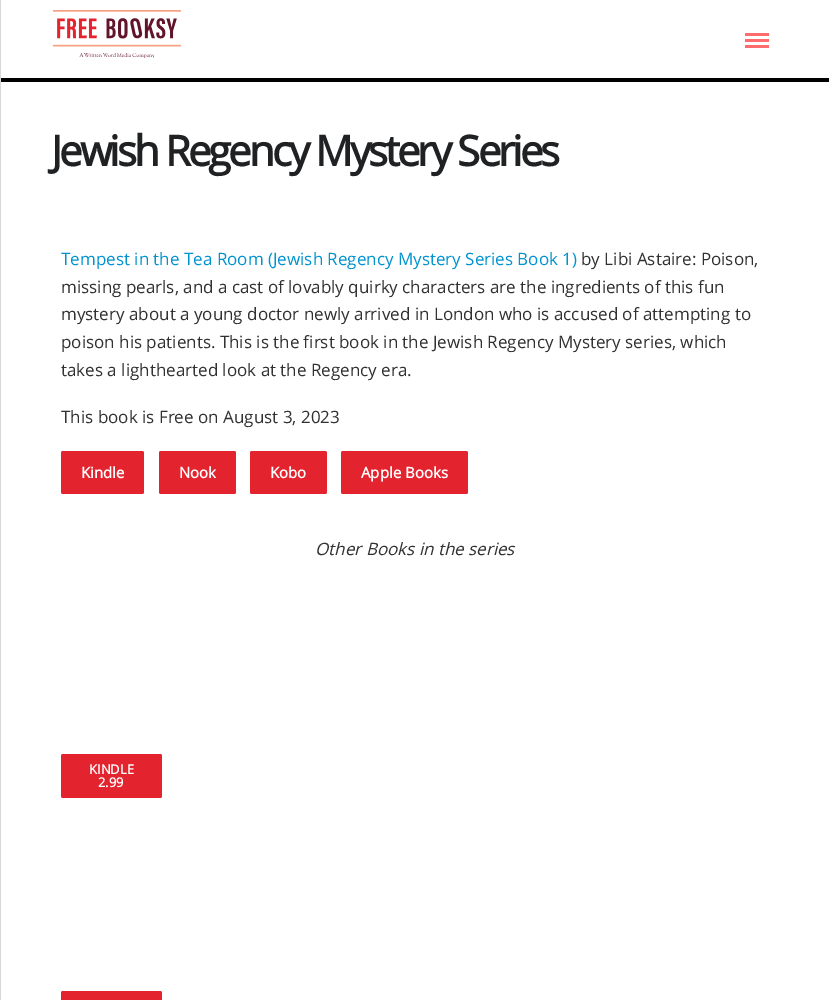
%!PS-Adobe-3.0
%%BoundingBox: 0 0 829 1000
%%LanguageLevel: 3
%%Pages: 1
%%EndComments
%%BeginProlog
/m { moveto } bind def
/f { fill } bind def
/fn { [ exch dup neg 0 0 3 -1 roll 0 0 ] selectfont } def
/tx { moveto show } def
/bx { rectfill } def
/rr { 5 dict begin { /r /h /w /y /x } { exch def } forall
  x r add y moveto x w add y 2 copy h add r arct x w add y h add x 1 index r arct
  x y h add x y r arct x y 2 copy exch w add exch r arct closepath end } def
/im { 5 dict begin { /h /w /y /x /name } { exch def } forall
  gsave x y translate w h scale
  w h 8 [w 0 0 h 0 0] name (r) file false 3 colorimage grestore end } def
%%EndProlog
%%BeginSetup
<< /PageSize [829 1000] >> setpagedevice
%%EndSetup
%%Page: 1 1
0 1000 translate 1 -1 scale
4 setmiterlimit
0.847 setgray
0 0 829 1000 bx
1 setgray
1 0 828 1000 bx
0 setgray
1 78 828 4 bx
(image0.raw) 53 10 128 48 im
1 0.424 0.427 setrgbcolor
745 33 24 3 bx
745 39 24 3 bx
745 45 24 3 bx
/OpenSans-Bold 42 fn
0.122 0.129 0.137 setrgbcolor
51 166 m -3 0 (Jewish Regency Mystery Series) ashow
/OpenSans-Regular 17 fn
0 0.576 0.816 setrgbcolor
(Tempest in the Tea Room \(Jewish Regency Mystery Series Book 1\)) 61 265 tx
0.192 setgray
(by Libi Astaire: Poison,) 581 265 tx
(missing pearls, and a cast of lovably quirky characters are the ingredients of this fun) 61 293 tx
(mystery about a young doctor newly arrived in London who is accused of attempting to) 61 320 tx
(poison his patients. This is the first book in the Jewish Regency Mystery series, which) 61 348 tx
(takes a lighthearted look at the Regency era.) 61 376 tx
(This book is Free on August 3, 2023) 61 423 tx
0.89 0.141 0.18 setrgbcolor
61 451 83 43 2 rr f
/OpenSans-Bold 15 fn
1 setgray
(Kindle) 81 478 tx
0.89 0.141 0.18 setrgbcolor
159 451 77 43 2 rr f
1 setgray
(Nook) 179 478 tx
0.89 0.141 0.18 setrgbcolor
250 451 77 43 2 rr f
1 setgray
(Kobo) 270 478 tx
0.89 0.141 0.18 setrgbcolor
341 451 127 43 2 rr f
1 setgray
(Apple Books) 361 478 tx
/OpenSans-Italic 17 fn
0.192 setgray
(Other Books in the series) 315 555 tx
0.89 0.141 0.18 setrgbcolor
61 754 101 44 2 rr f
/OpenSans-Bold 13 fn
1 setgray
(KINDLE) 89 774 tx
(2.99) 98 787 tx
0.89 0.141 0.18 setrgbcolor
61 991 101 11 2 rr f
showpage
%%EOF
